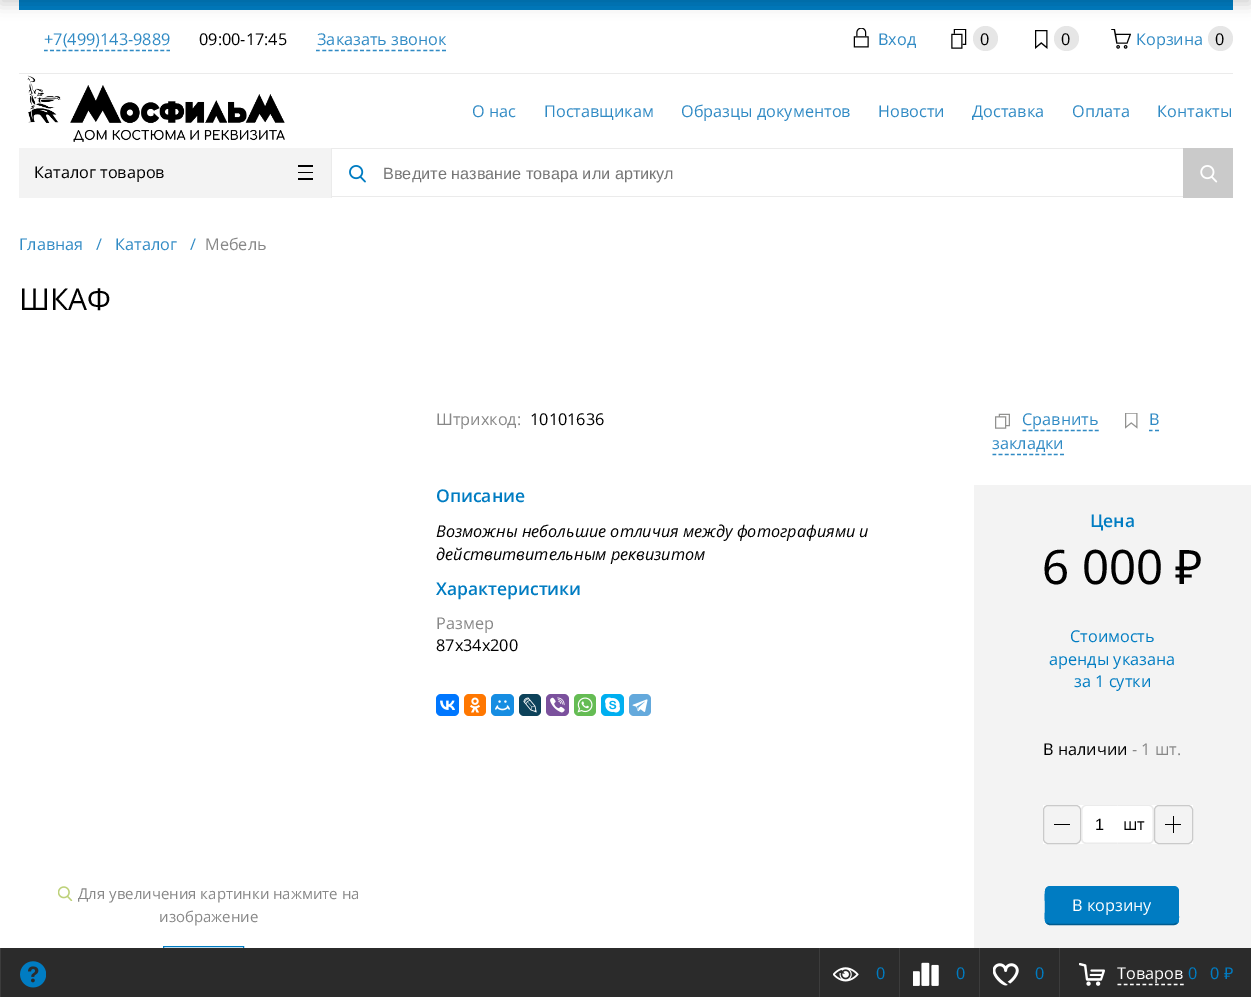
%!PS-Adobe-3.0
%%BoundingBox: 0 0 1251 997
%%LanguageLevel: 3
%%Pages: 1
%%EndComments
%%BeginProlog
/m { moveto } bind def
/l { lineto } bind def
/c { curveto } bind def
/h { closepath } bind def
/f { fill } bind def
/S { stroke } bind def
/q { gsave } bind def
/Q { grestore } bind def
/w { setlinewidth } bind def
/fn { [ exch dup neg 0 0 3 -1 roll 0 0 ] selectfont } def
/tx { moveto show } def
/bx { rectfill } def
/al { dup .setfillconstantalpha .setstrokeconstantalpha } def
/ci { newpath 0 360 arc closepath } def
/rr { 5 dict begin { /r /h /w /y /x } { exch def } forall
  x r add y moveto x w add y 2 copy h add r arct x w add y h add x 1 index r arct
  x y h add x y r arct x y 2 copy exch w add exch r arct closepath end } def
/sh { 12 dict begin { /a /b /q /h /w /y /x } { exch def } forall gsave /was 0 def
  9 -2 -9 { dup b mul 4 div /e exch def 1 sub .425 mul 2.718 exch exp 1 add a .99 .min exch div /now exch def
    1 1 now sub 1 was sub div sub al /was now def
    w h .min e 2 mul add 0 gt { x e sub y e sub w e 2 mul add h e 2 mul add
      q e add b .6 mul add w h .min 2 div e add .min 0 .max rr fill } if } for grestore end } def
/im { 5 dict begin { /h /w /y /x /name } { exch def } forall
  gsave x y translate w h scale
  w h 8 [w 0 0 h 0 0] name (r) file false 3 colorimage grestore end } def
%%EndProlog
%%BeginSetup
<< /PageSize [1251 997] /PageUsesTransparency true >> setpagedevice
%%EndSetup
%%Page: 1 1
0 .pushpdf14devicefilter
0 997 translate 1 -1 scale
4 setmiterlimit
1 setgray
0 0 1251 997 bx
0 0.486 0.761 setrgbcolor
19 0 1214 10 bx
0.902 setgray
985.5 38.5 12.5 ci f
1066.5 38.5 12.5 ci f
1220.5 38.5 12.5 ci f
0 setgray
0 -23 1251 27 0 7.5 0.18 sh
0.922 setgray
19 73 1214 1 bx
/OpenSans-Regular 16.25 fn
0.188 0.541 0.769 setrgbcolor
(+7\(499\)143-9889) 44 45 tx
1.2 w
[3.75 2.38] 0 setdash
44 50.5 m 170 50.5 l S
0 setgray
(09:00-17:45) 199 45 tx
0.188 0.541 0.769 setrgbcolor
(Заказать звонок) 317 45 tx
[3.75 2.56] 0 setdash
316 50.5 m 446 50.5 l S
(image0.raw) 853 28 16 20 im
(Вход) 878 45 tx
(image1.raw) 951 29 16 20 im
0 setgray
(0) 980 45 tx
(image2.raw) 1035 30 13 19 im
(0) 1061 45 tx
(image3.raw) 1111 29 20 20 im
0.188 0.541 0.769 setrgbcolor
(Корзина) 1136 45 tx
0 setgray
(0) 1215 45 tx
(image4.raw) 27 75 258 67 im
0.188 0.541 0.769 setrgbcolor
(О нас) 472 117 tx
(Поставщикам) 544 117 tx
(Образцы документов) 681 117 tx
(Новости) 878 117 tx
(Доставка) 972 117 tx
(Оплата) 1072 117 tx
(Контакты) 1157 117 tx
0.953 setgray
19 148 312 50 bx
0 setgray
(Каталог товаров) 34 178 tx
298 165 15 2 bx
298 172 15 1 bx
298 178 15 2 bx
0.922 setgray
331 148 852 1 bx
331 196 852 1 bx
331 148 1 50 bx
(image5.raw) 349 165 17 18 im
0.792 setgray
1183 148 50 50 bx
(image6.raw) 1200 165 18 18 im
/LiberationSans-Regular 16.25 fn
0.459 setgray
(Введите название товара или артикул) 383 179 tx
/OpenSans-Regular 16.25 fn
0.188 0.541 0.769 setrgbcolor
(Главная) 19 250 tx
(/) 96 250 tx
(Каталог) 115 250 tx
(/) 190 250 tx
0.529 setgray
(Мебель) 205 250 tx
/OpenSans-Regular 30 fn
0 setgray
(ШКАФ) 19 310 tx
(image7.raw) 58 886 15 15 im
/OpenSans-Regular 15 fn
0.529 setgray
(Для увеличения картинки нажмите на) 78 899 tx
(изображение) 159 922 tx
0 0.486 0.761 setrgbcolor
1 w
[] 0 setdash
163.5 946.5 80 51 rectstroke
/OpenSans-Regular 16.25 fn
0.529 setgray
(Штрихкод:) 436 425 tx
0 setgray
(10101636) 530 425 tx
(image8.raw) 1125 413 13 16 im
0.188 0.541 0.769 setrgbcolor
(В) 1149 425 tx
1.2 w
1149 430.5 m 1152.5 430.5 l 1155 430.5 m 1159 430.5 l S
(закладки) 992 449 tx
[3.75 2.39] 0 setdash
992.5 454.5 m 1064 454.5 l S
(image9.raw) 995 413 15 16 im
(Сравнить) 1022 425 tx
[3.75 2.29] 0 setdash
1022.5 430.5 m 1099 430.5 l S
/OpenSans-SemiBold 17.5 fn
0 0.486 0.761 setrgbcolor
(Описание) 436 502 tx
/OpenSans-Italic 16.25 fn
0 setgray
(Возможны небольшие отличия между фотографиями и) 436 537 tx
(действитвительным реквизитом) 436 560 tx
/OpenSans-SemiBold 17.5 fn
0 0.486 0.761 setrgbcolor
(Характеристики) 436 595 tx
/OpenSans-Regular 16.25 fn
0.529 setgray
(Размер) 436 629 tx
0 setgray
(87х34х200) 436 651 tx
0 0.467 1 setrgbcolor
436 694 23 22 5 rr f
(image10.raw) 440 700 15 10 im
1 0.467 0 setrgbcolor
464 694 22 22 5 rr f
(image11.raw) 470 697 10 16 im
0.086 0.553 0.886 setrgbcolor
491 694 23 22 5 rr f
(image12.raw) 495 700 15 11 im
0.051 0.259 0.353 setrgbcolor
519 694 22 22 5 rr f
(image13.raw) 523 697 14 16 im
0.482 0.318 0.616 setrgbcolor
546 694 23 22 5 rr f
(image14.raw) 550 697 15 16 im
0.396 0.737 0.329 setrgbcolor
574 694 22 22 5 rr f
(image15.raw) 577 697 16 16 im
0 0.686 0.941 setrgbcolor
601 694 23 22 5 rr f
(image16.raw) 605 697 15 16 im
0.392 0.663 0.863 setrgbcolor
629 694 22 22 5 rr f
(image17.raw) 632 699 16 13 im
0.953 setgray
974 485 277 463 bx
/OpenSans-SemiBold 17.5 fn
0 0.486 0.761 setrgbcolor
(Цена) 1090 527 tx
/NotoSans-Regular 47.5 fn
0 setgray
(6 000 ₽) 1042 584 tx
/OpenSans-Regular 16.25 fn
0 0.486 0.761 setrgbcolor
(Стоимость) 1070 642 tx
(аренды указана) 1049 665 tx
(за 1 сутки) 1074 687 tx
0 setgray
(В наличии) 1043 755 tx
0.529 setgray
(- 1 шт.) 1132 755 tx
1 setgray
1043 805 150 39 bx
0.953 setgray
1043.5 805.5 37 38 4.5 rr q f Q
0.792 setgray
1 w
[] 0 setdash
S
0 setgray
1054 824 16 1 bx
0.922 setgray
1086 805 m 1117.5 805 l 1117.5 844 l 1086 844 l 1083.5 844 1081 841.5 1081 839 c 1081 810 l 1081 807 1083.5 805 1086 805 c h 1086 806 m 1117.5 806 l 1117.5 842.5 l 1086 842.5 l 1084 842.5 1082.5 841 1082.5 839 c 1082.5 810 l 1082.5 808 1084 806 1086 806 c h eofill
/LiberationSans-Regular 16.25 fn
0 setgray
(1) 1095 830 tx
0.922 setgray
1117.5 805 m 1149 805 l 1151.5 805 1154 807 1154 810 c 1154 839 l 1154 841.5 1151.5 844 1149 844 c 1117.5 844 l h 1117.5 806 m 1149 806 l 1151 806 1152.5 808 1152.5 810 c 1152.5 839 l 1152.5 841 1151 842.5 1149 842.5 c 1117.5 842.5 l h eofill
/OpenSans-Regular 16.25 fn
0 setgray
(шт) 1123 830 tx
0.953 setgray
1154.5 805.5 38 38 4.5 rr q f Q
0.792 setgray
S
0 setgray
1165 824 16 1 bx
1173 816 1 17 bx
0 0.486 0.761 setrgbcolor
1045 886 134 39 5 rr f
0 0.357 0.561 setrgbcolor
1.2 w
1177 923 m 1174 924.5 l 1049.5 924.5 l 1047 923 l S
0 0.486 0.761 setrgbcolor
1047 923 m 1044 920.5 1045.5 913.5 1045.5 910.5 c 1045.5 882.5 1041 887 1070.5 887 c 1153 887 l 1183 887 1178 882.5 1178 910.5 c 1178 913.5 1179.5 920.5 1177 923 c S
1 setgray
(В корзину) 1072 911 tx
0.169 setgray
1 948 1250 49 bx
0.235 setgray
0 948 1 49 bx
(image18.raw) 20 961 26 27 im
819 948 1 49 bx
(image19.raw) 833 967 26 15 im
0 0.486 0.761 setrgbcolor
(0) 876 979 tx
0.235 setgray
899 948 1 49 bx
(image20.raw) 913 962 26 24 im
0 0.486 0.761 setrgbcolor
(0) 956 979 tx
0.235 setgray
979 948 1 49 bx
(image21.raw) 993 963 26 23 im
0 0.486 0.761 setrgbcolor
(0) 1035 979 tx
0.235 setgray
1059 948 1 49 bx
(image22.raw) 1079 962 26 24 im
1 setgray
(Товаров) 1117 979 tx
[3.75 2.5] 0 setdash
1117.5 984.5 m 1184 984.5 l S
0 0.486 0.761 setrgbcolor
(0) 1188 979 tx
/NotoSans-Regular 16.25 fn
(0 ₽) 1210 979 tx
.poppdf14devicefilter showpage
%%EOF
